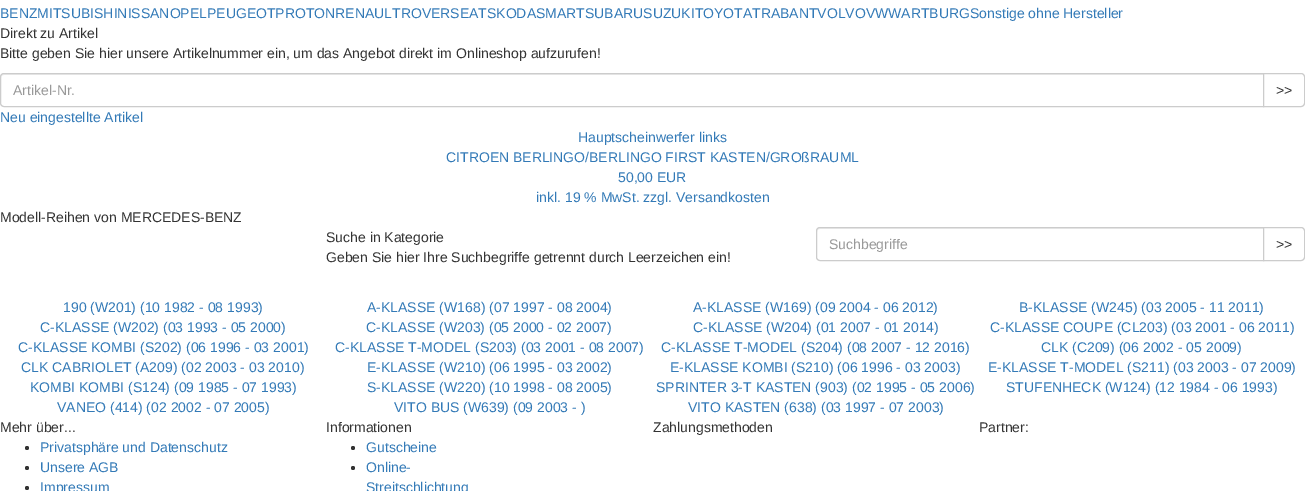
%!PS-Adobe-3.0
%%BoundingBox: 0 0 1305 491
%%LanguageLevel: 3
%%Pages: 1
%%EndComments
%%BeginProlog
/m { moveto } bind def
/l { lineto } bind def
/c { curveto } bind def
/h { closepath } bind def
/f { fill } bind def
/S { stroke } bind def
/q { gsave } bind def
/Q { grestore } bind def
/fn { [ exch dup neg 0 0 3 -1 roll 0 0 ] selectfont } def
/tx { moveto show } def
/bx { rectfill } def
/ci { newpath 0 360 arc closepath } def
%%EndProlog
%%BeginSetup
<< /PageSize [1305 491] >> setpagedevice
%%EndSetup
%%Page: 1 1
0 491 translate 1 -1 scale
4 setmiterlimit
1 setgray
0 0 1305 491 bx
/LiberationSans-Regular 14 fn
0.2 0.478 0.718 setrgbcolor
(BENZMITSUBISHINISSANOPELPEUGEOTPROTONRENAULTROVERSEATSKODASMARTSUBARUSUZUKITOYOTATRABANTVOLVOVWWARTBURGSonstige ohne Hersteller) 0 18 tx
0.2 setgray
(Direkt zu Artikel) 0 38 tx
(Bitte geben Sie hier unsere Artikelnummer ein, um das Angebot direkt im Onlineshop aufzurufen!) 0 58 tx
0.925 setgray
4 75 m 1263 75 l 1263 74 l 4 74 l 2 74 1 76 1 78 c 1 76 2 75 4 75 c h f
0.8 setgray
4 73.5 m 1263.5 73.5 l 1263.5 106.5 l 4 106.5 l 2 106.5 0.5 105 0.5 103 c 0.5 77 l 0.5 75 2 73.5 4 73.5 c h S
0.6 setgray
(Artikel-Nr.) 13 95 tx
1 setgray
1263.5 73.5 m 1301 73.5 l 1303 73.5 1304.5 75 1304.5 77 c 1304.5 103 l 1304.5 105 1303 106.5 1301 106.5 c 1263.5 106.5 l h q f Q
0.8 setgray
S
0.2 setgray
(>>) 1276 95 tx
0.2 0.478 0.718 setrgbcolor
(Neu eingestellte Artikel) 0 122 tx
(Hauptscheinwerfer links) 578 142 tx
(CITROEN BERLINGO/BERLINGO FIRST KASTEN/GROßRAUML) 446 162 tx
(50,00 EUR) 618 182 tx
(inkl. 19 % MwSt. zzgl. Versandkosten) 536 202 tx
0.2 setgray
(Modell-Reihen von MERCEDES-BENZ) 0 222 tx
(Suche in Kategorie) 326 242 tx
(Geben Sie hier Ihre Suchbegriffe getrennt durch Leerzeichen ein!) 326 262 tx
0.925 setgray
820 229 m 1263 229 l 1263 228 l 820 228 l 818 228 817 230 817 232 c 817 230 818 229 820 229 c h f
0.8 setgray
820 227.5 m 1263.5 227.5 l 1263.5 260.5 l 820 260.5 l 818 260.5 816.5 259 816.5 257 c 816.5 231 l 816.5 229 818 227.5 820 227.5 c h S
0.6 setgray
(Suchbegriffe) 829 249 tx
1 setgray
1263.5 227.5 m 1301 227.5 l 1303 227.5 1304.5 229 1304.5 231 c 1304.5 257 l 1304.5 259 1303 260.5 1301 260.5 c 1263.5 260.5 l h q f Q
0.8 setgray
S
0.2 setgray
(>>) 1276 249 tx
0.2 0.478 0.718 setrgbcolor
(190 \(W201\) \(10 1982 - 08 1993\)) 63 312 tx
(A-KLASSE \(W168\) \(07 1997 - 08 2004\)) 367 312 tx
(A-KLASSE \(W169\) \(09 2004 - 06 2012\)) 693 312 tx
(B-KLASSE \(W245\) \(03 2005 - 11 2011\)) 1019 312 tx
(C-KLASSE \(W202\) \(03 1993 - 05 2000\)) 40 332 tx
(C-KLASSE \(W203\) \(05 2000 - 02 2007\)) 366 332 tx
(C-KLASSE \(W204\) \(01 2007 - 01 2014\)) 693 332 tx
(C-KLASSE COUPE \(CL203\) \(03 2001 - 06 2011\)) 990 332 tx
(C-KLASSE KOMBI \(S202\) \(06 1996 - 03 2001\)) 18 352 tx
(C-KLASSE T-MODEL \(S203\) \(03 2001 - 08 2007\)) 335 352 tx
(C-KLASSE T-MODEL \(S204\) \(08 2007 - 12 2016\)) 661 352 tx
(CLK \(C209\) \(06 2002 - 05 2009\)) 1041 352 tx
(CLK CABRIOLET \(A209\) \(02 2003 - 03 2010\)) 21 372 tx
(E-KLASSE \(W210\) \(06 1995 - 03 2002\)) 367 372 tx
(E-KLASSE KOMBI \(S210\) \(06 1996 - 03 2003\)) 670 372 tx
(E-KLASSE T-MODEL \(S211\) \(03 2003 - 07 2009\)) 988 372 tx
(KOMBI KOMBI \(S124\) \(09 1985 - 07 1993\)) 30 392 tx
(S-KLASSE \(W220\) \(10 1998 - 08 2005\)) 367 392 tx
(SPRINTER 3-T KASTEN \(903\) \(02 1995 - 05 2006\)) 656 392 tx
(STUFENHECK \(W124\) \(12 1984 - 06 1993\)) 1006 392 tx
(VANEO \(414\) \(02 2002 - 07 2005\)) 57 412 tx
(VITO BUS \(W639\) \(09 2003 - \)) 394 412 tx
(VITO KASTEN \(638\) \(03 1997 - 07 2003\)) 688 412 tx
0.2 setgray
(Mehr über...) 0 432 tx
27 448 2 ci f
0.2 0.478 0.718 setrgbcolor
(Privatsphäre und Datenschutz) 40 452 tx
0.2 setgray
27 468 2 ci f
0.2 0.478 0.718 setrgbcolor
(Unsere AGB) 40 472 tx
0.2 setgray
27 488 2 ci f
0.2 0.478 0.718 setrgbcolor
(Impressum) 40 492 tx
0.2 setgray
(Informationen) 326 432 tx
353 448 2 ci f
0.2 0.478 0.718 setrgbcolor
(Gutscheine) 366 452 tx
0.2 setgray
353 468 2 ci f
0.2 0.478 0.718 setrgbcolor
(Online-) 366 472 tx
(Streitschlichtung) 366 492 tx
0.2 setgray
(Zahlungsmethoden) 653 432 tx
(Partner:) 979 432 tx
showpage
%%EOF
